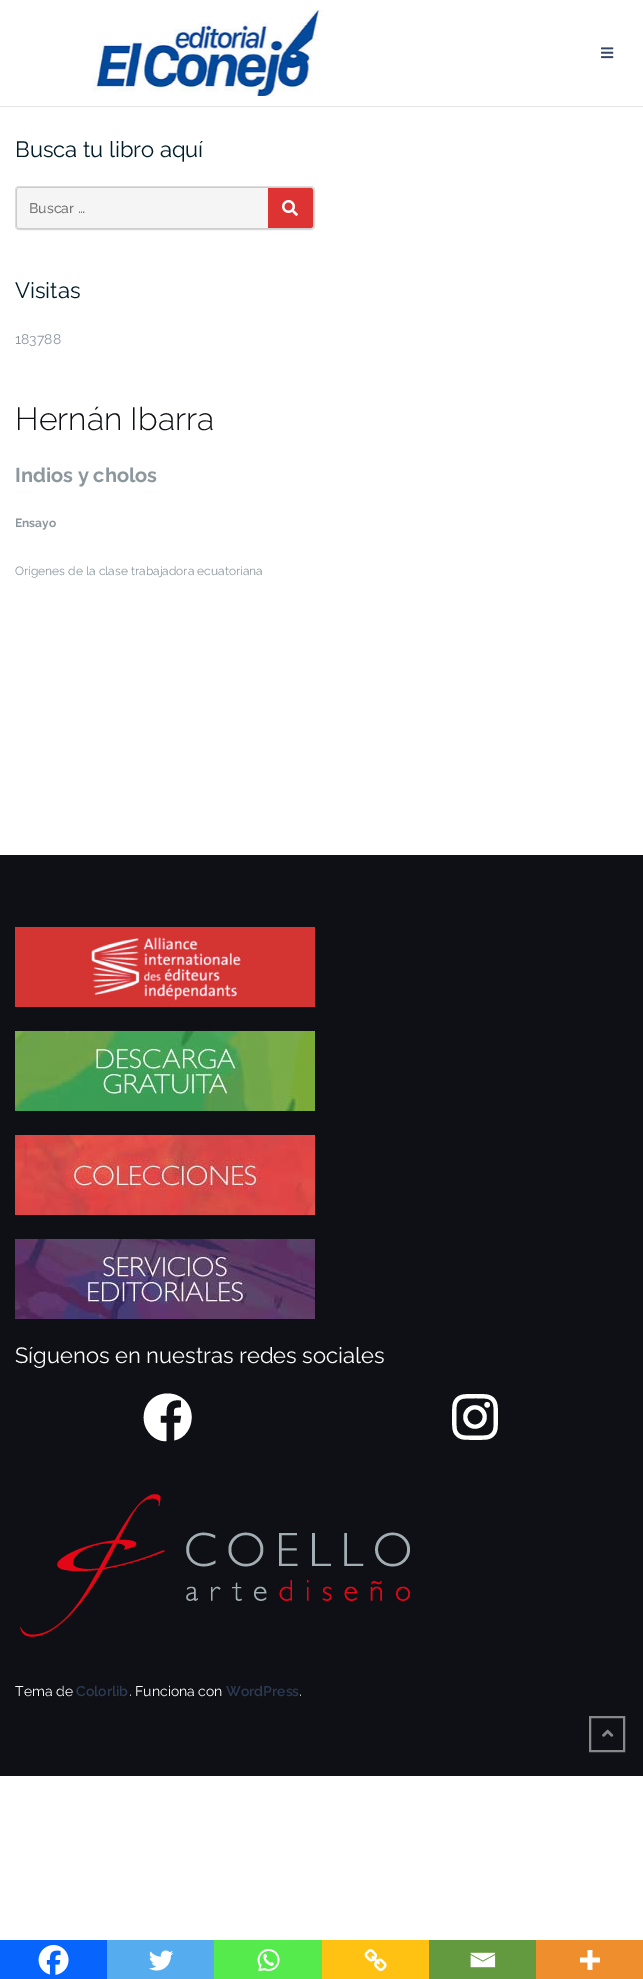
%!PS-Adobe-3.0
%%BoundingBox: 0 0 643 1979
%%LanguageLevel: 3
%%Pages: 1
%%EndComments
%%BeginProlog
/m { moveto } bind def
/l { lineto } bind def
/c { curveto } bind def
/h { closepath } bind def
/f { fill } bind def
/S { stroke } bind def
/w { setlinewidth } bind def
/fn { [ exch dup neg 0 0 3 -1 roll 0 0 ] selectfont } def
/tx { moveto show } def
/bx { rectfill } def
/rr { 5 dict begin { /r /h /w /y /x } { exch def } forall
  x r add y moveto x w add y 2 copy h add r arct x w add y h add x 1 index r arct
  x y h add x y r arct x y 2 copy exch w add exch r arct closepath end } def
/im { 5 dict begin { /h /w /y /x /name } { exch def } forall
  gsave x y translate w h scale
  w h 8 [w 0 0 h 0 0] name (r) file false 3 colorimage grestore end } def
%%EndProlog
%%BeginSetup
<< /PageSize [643 1979] >> setpagedevice
%%EndSetup
%%Page: 1 1
0 1979 translate 1 -1 scale
4 setmiterlimit
1 setgray
0 0 643 1979 bx
0.902 setgray
0 106 643 1 bx
(image0.raw) 92 10 232 86 im
(image1.raw) 601 47 13 12 im
/Raleway-Regular 22 fn
0 0.11 0.157 setrgbcolor
(Busca tu libro aquí) 15 157 tx
0.867 setgray
15.5 186.5 299 43 3.5 rr S
0.8 setgray
16.5 187.5 297 41 3.5 rr S
0.961 setgray
20 188 m 268 188 l 268 228 l 20 228 l 18.5 228 17 226.5 17 225 c 17 191 l 17 189.5 18.5 188 20 188 c h f
/Raleway-Medium 14 fn
0.459 setgray
(Buscar …) 29 213 tx
0.867 0.2 0.2 setrgbcolor
268 188 m 268 228 l 310 228 l 312 228 313 227 313 225 c 313 191 l 313 189 312 188 310 188 c h f
(image2.raw) 282 200 16 16 im
/Raleway-Regular 22 fn
0 0.11 0.157 setrgbcolor
(Visitas) 15 298 tx
/Raleway-Regular 14 fn
0.549 0.592 0.62 setrgbcolor
(183788) 15 344 tx
/Raleway-Light 32 fn
0.055 0.063 0.082 setrgbcolor
(Hernán Ibarra) 15 430 tx
/Raleway-Bold 20 fn
0.549 0.592 0.62 setrgbcolor
(Indios y cholos) 15 482 tx
/Raleway-Bold 12 fn
(Ensayo) 15 527 tx
/Raleway-Regular 12 fn
(Orígenes de la clase trabajadora ecuatoriana) 15 575 tx
0.027 0.396 0.996 setrgbcolor
0 1940 107 39 bx
(image3.raw) 38 1945 31 30 im
0.333 0.675 0.933 setrgbcolor
107 1940 107 39 bx
(image4.raw) 149 1950 25 21 im
0.333 0.922 0.298 setrgbcolor
214 1940 108 39 bx
(image5.raw) 257 1949 23 23 im
1 0.757 0.071 setrgbcolor
322 1940 107 39 bx
(image6.raw) 364 1949 23 22 im
0.392 0.604 0.247 setrgbcolor
429 1940 107 39 bx
(image7.raw) 470 1952 26 16 im
0.933 0.557 0.176 setrgbcolor
536 1940 107 39 bx
(image8.raw) 579 1950 21 20 im
0.055 0.063 0.082 setrgbcolor
0 855 643 921 bx
(image9.raw) 15 927 300 80 im
(image10.raw) 15 1031 300 80 im
(image11.raw) 15 1135 300 80 im
(image12.raw) 15 1239 300 80 im
/Raleway-Regular 22 fn
1 setgray
(Síguenos en nuestras redes sociales) 15 1363 tx
(image13.raw) 143 1393 49 49 im
(image14.raw) 452 1394 46 46 im
(image15.raw) 20 1494 390 143 im
/Raleway-Regular 14 fn
(Tema de) 15 1696 tx
/Raleway-SemiBold 14 fn
0.173 0.227 0.325 setrgbcolor
(Colorlib) 76 1696 tx
/Raleway-Regular 14 fn
1 setgray
(. Funciona con) 129 1696 tx
/Raleway-SemiBold 14 fn
0.173 0.227 0.325 setrgbcolor
(WordPress) 226 1696 tx
/Raleway-Regular 14 fn
1 setgray
(.) 299 1696 tx
0.529 0.533 0.541 setrgbcolor
2 w
590 1717 34 34 rectstroke
(image16.raw) 602 1729 12 8 im
showpage
%%EOF
